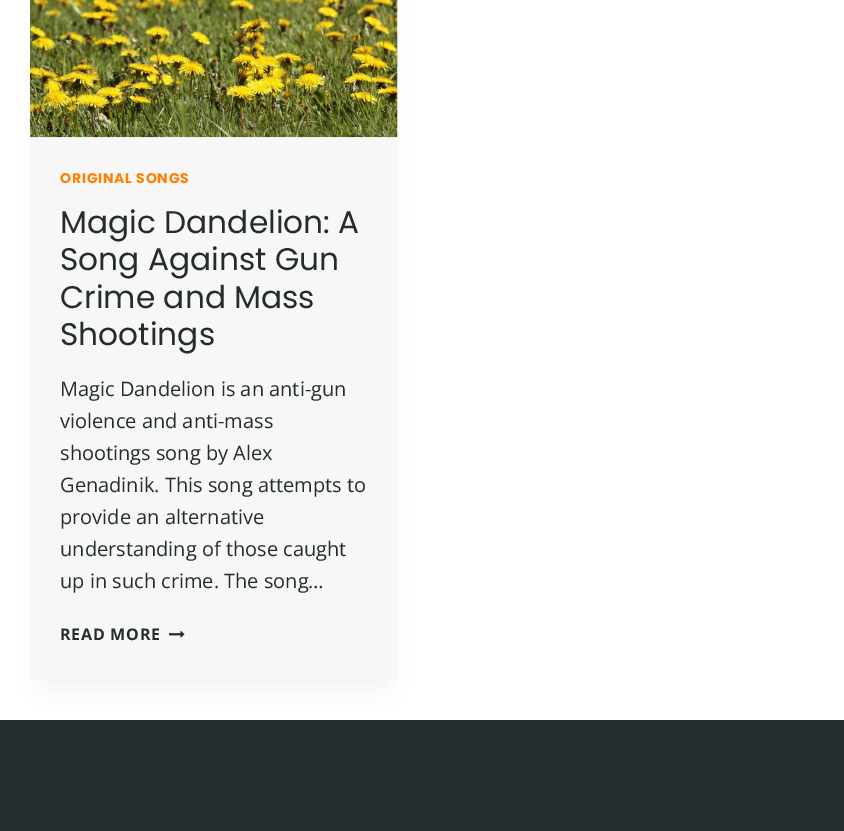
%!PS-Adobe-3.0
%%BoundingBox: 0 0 844 831
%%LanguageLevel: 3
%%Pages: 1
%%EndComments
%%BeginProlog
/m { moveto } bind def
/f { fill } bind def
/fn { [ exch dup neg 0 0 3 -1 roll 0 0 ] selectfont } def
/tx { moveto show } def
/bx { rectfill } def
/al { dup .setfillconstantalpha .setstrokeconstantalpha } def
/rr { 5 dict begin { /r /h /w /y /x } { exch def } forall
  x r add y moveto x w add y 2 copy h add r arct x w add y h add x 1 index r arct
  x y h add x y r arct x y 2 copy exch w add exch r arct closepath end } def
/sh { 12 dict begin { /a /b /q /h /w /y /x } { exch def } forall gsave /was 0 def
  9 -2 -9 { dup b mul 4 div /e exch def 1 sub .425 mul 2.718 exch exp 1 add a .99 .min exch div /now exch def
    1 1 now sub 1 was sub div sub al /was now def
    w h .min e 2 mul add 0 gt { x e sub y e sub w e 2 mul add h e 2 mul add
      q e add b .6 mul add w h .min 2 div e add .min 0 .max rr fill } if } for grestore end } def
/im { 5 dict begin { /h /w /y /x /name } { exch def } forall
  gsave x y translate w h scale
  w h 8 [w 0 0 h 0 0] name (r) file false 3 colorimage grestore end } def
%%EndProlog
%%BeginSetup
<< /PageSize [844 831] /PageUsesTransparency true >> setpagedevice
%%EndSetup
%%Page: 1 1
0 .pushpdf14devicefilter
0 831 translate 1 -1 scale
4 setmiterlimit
1 setgray
0 0 844 831 bx
0.141 0.176 0.176 setrgbcolor
0 720 844 111 bx
0 setgray
43 -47 342 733 0 15.5 0.05 sh
0.969 setgray
30 -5 368 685 5 rr f
(image0.raw) 30 0 368 138 im
/Poppins-Bold 14 fn
1 0.498 0 setrgbcolor
60 183 m 0.75 0 (ORIGINAL SONGS) ashow
/Poppins-Regular 31.25 fn
0.141 0.176 0.176 setrgbcolor
(Magic Dandelion: A) 60 233 tx
(Song Against Gun) 60 270 tx
(Crime and Mass) 60 308 tx
(Shootings) 60 345 tx
/OpenSans-Regular 20 fn
(Magic Dandelion is an anti-gun) 60 396 tx
(violence and anti-mass) 60 428 tx
(shootings song by Alex) 60 460 tx
(Genadinik. This song attempts to) 60 492 tx
(provide an alternative) 60 524 tx
(understanding of those caught) 60 556 tx
(up in such crime. The song…) 60 588 tx
/OpenSans-Bold 16 fn
60 640 m 0.75 0 (READ MORE) ashow
(image1.raw) 169 630 16 8 im
.poppdf14devicefilter showpage
%%EOF
